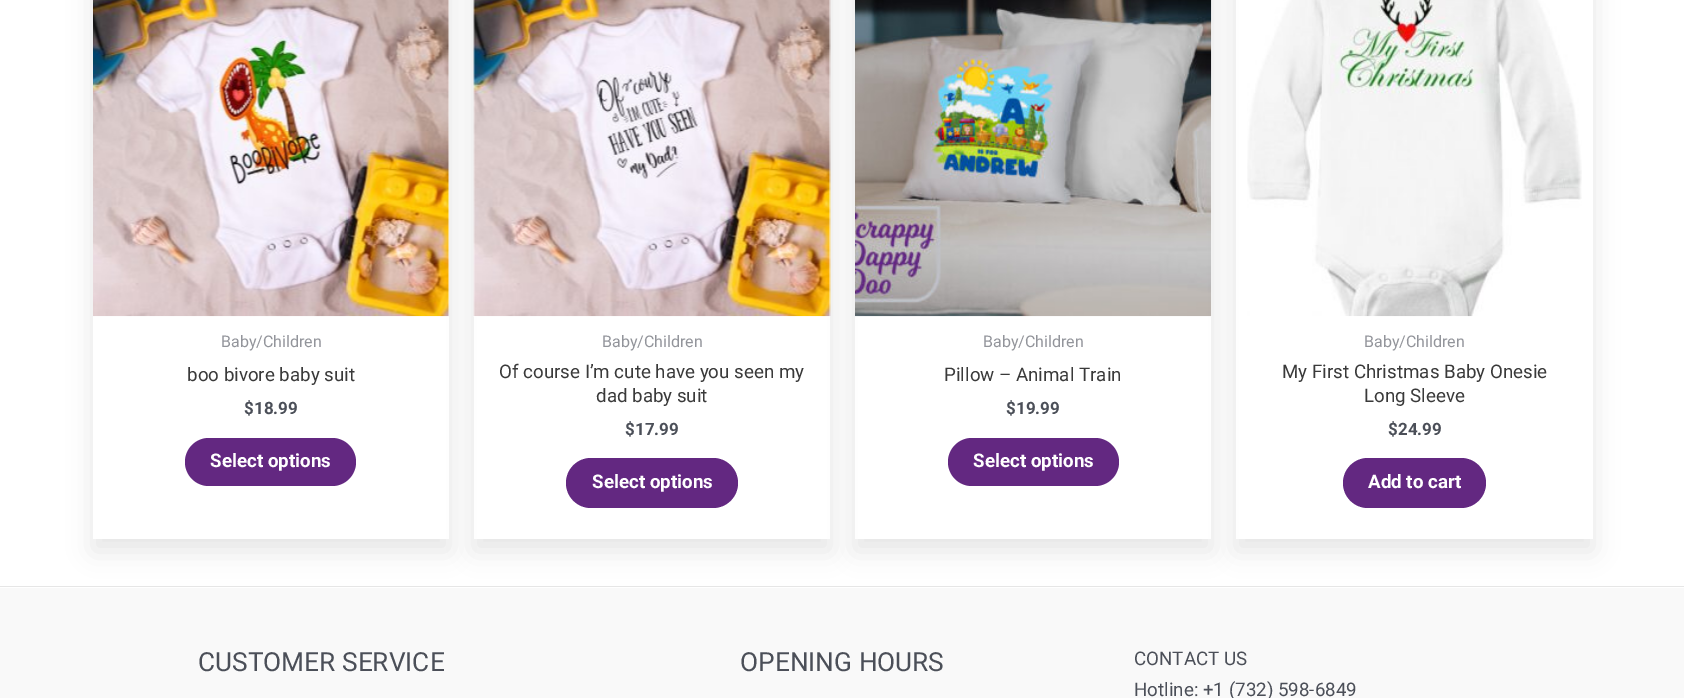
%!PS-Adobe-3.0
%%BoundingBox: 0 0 1684 698
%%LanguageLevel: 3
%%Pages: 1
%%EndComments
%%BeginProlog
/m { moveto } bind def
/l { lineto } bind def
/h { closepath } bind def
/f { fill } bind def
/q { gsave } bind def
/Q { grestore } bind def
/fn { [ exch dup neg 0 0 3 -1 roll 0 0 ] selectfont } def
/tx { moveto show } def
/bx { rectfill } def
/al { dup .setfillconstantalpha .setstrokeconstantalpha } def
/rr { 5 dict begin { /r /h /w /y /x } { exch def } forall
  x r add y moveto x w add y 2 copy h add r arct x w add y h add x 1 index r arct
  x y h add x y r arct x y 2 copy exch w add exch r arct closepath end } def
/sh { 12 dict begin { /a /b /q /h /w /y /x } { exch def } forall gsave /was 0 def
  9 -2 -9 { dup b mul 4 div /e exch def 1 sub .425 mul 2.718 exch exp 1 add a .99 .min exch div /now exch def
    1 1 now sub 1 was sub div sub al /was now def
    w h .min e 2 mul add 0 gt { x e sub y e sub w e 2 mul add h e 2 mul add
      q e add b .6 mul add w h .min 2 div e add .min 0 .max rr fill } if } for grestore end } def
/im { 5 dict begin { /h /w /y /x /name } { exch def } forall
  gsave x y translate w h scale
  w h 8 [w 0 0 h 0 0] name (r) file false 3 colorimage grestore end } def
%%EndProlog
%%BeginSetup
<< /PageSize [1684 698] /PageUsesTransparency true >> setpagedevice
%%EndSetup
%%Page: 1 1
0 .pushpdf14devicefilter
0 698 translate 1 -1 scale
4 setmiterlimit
1 setgray
0 0 1684 698 bx
0.976 setgray
0 588 1684 110 bx
0.902 setgray
0 586 1684 1 bx
q
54 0 m 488 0 l 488 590 l 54 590 l h 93 -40 m 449 -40 l 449 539 l 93 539 l h eoclip newpath
0 setgray
93 -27 356 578 0 12.5 0.1 sh
Q
(image0.raw) 93 0 357 317 im
/Roboto-Regular 16 fn
0.576 0.584 0.608 setrgbcolor
(Baby/Children) 221 347 tx
/Roboto-Regular 18.75 fn
0.227 setgray
(boo bivore baby suit) 187 381 tx
/Roboto-Bold 17 fn
0.294 0.31 0.345 setrgbcolor
($18.99) 244 414 tx
0.388 0.157 0.506 setrgbcolor
185 438 171 48 24 rr f
/Roboto-Bold 18.75 fn
1 setgray
(Select options) 210 467 tx
q
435 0 m 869 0 l 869 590 l 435 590 l h 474 -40 m 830 -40 l 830 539 l 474 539 l h eoclip newpath
0 setgray
474 -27 356 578 0 12.5 0.1 sh
Q
(image1.raw) 473 0 358 317 im
/Roboto-Regular 16 fn
0.576 0.584 0.608 setrgbcolor
(Baby/Children) 602 347 tx
/Roboto-Regular 18.75 fn
0.227 setgray
(Of course I’m cute have you seen my) 499 378 tx
(dad baby suit) 596 402 tx
/Roboto-Bold 17 fn
0.294 0.31 0.345 setrgbcolor
($17.99) 625 435 tx
0.388 0.157 0.506 setrgbcolor
566 458 172 50 25 rr f
/Roboto-Bold 18.75 fn
1 setgray
(Select options) 592 488 tx
q
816 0 m 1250 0 l 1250 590 l 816 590 l h 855 -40 m 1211 -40 l 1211 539 l 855 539 l h eoclip newpath
0 setgray
855 -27 356 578 0 12.5 0.1 sh
Q
(image2.raw) 855 0 357 317 im
/Roboto-Regular 16 fn
0.576 0.584 0.608 setrgbcolor
(Baby/Children) 983 347 tx
/Roboto-Regular 18.75 fn
0.227 setgray
(Pillow – Animal Train) 944 381 tx
/Roboto-Bold 17 fn
0.294 0.31 0.345 setrgbcolor
($19.99) 1006 414 tx
0.388 0.157 0.506 setrgbcolor
948 438 171 48 24 rr f
/Roboto-Bold 18.75 fn
1 setgray
(Select options) 973 467 tx
q
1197 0 m 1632 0 l 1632 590 l 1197 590 l h 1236 -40 m 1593 -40 l 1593 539 l 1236 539 l h eoclip newpath
0 setgray
1236 -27 357 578 0 12.5 0.1 sh
Q
(image3.raw) 1247 0 335 317 im
/Roboto-Regular 16 fn
0.576 0.584 0.608 setrgbcolor
(Baby/Children) 1364 347 tx
/Roboto-Regular 18.75 fn
0.227 setgray
(My First Christmas Baby Onesie) 1282 378 tx
(Long Sleeve) 1364 402 tx
/Roboto-Bold 17 fn
0.294 0.31 0.345 setrgbcolor
($24.99) 1388 435 tx
0.388 0.157 0.506 setrgbcolor
1343 458 143 50 25 rr f
/Roboto-Bold 18.75 fn
1 setgray
(Add to cart) 1368 488 tx
/Roboto-Regular 26.25 fn
0.294 0.31 0.345 setrgbcolor
(CUSTOMER SERVICE) 198 671 tx
(OPENING HOURS) 740 671 tx
/Roboto-Regular 18.75 fn
(CONTACT US) 1134 665 tx
(Hotline: +1 \(732\) 598-6849) 1134 696 tx
.poppdf14devicefilter showpage
%%EOF
